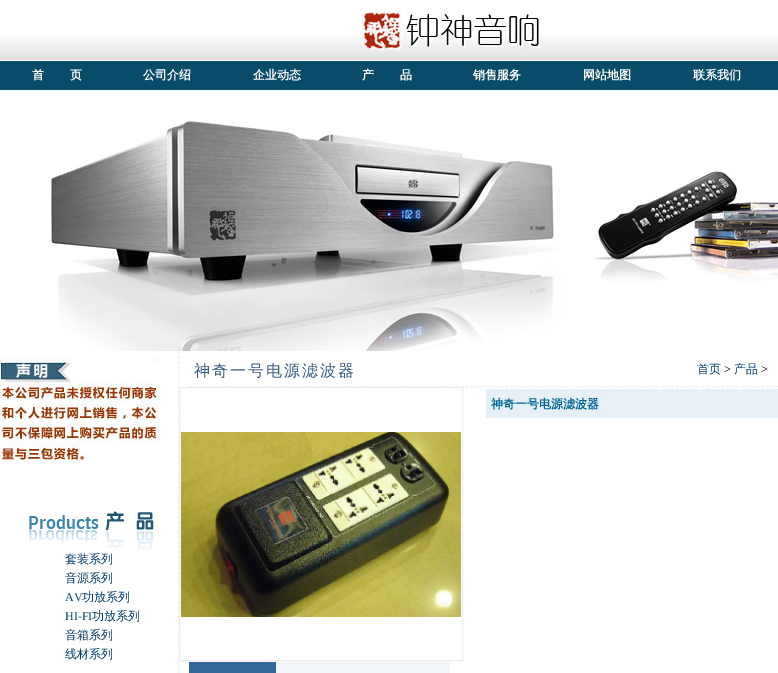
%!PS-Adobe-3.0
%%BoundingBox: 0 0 778 673
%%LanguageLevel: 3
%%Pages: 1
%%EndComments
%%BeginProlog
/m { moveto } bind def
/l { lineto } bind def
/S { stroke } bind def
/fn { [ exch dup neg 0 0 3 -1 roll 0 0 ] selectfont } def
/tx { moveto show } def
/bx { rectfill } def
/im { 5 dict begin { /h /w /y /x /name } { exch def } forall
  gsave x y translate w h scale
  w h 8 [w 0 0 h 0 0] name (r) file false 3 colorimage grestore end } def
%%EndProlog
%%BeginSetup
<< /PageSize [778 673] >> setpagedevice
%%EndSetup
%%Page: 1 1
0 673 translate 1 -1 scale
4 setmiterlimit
1 setgray
0 0 778 673 bx
(image0.raw) 0 35 778 56 im
(image1.raw) 359 12 182 39 im
0.035 0.298 0.412 setrgbcolor
2 61 776 28 bx
/WenQuanYiZenHei-Bold 12 fn
1 setgray
(首) 32 79 tx
(页) 70 79 tx
(公司介绍) 143 79 tx
(企业动态) 253 79 tx
(产) 362 79 tx
(品) 400 79 tx
(销售服务) 473 79 tx
(网站地图) 583 79 tx
(联系我们) 693 79 tx
(image2.raw) 0 91 778 260 im
0.933 setgray
[3 2] 0 setdash
178.5 351 m 178.5 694 l S
[3 2.02] 0 setdash
189 386.5 m 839 386.5 l S
/WenQuanYiZenHei-Medium 16 fn
0.216 0.357 0.518 setrgbcolor
194 376 m 2 0 (神奇一号电源滤波器) ashow
/WenQuanYiZenHei-Medium 12 fn
0 0.231 0.431 setrgbcolor
(首页) 697 373 tx
/LiberationSerif-Regular 12 fn
0 setgray
(>) 724 373 tx
/WenQuanYiZenHei-Medium 12 fn
0 0.231 0.431 setrgbcolor
(产品) 734 373 tx
/LiberationSerif-Regular 12 fn
0 setgray
(>) 761 373 tx
0.933 setgray
[] 0 setdash
179.5 387.5 283 273 rectstroke
(image3.raw) 181 432 280 185 im
0.906 0.941 0.965 setrgbcolor
486 389 292 29 bx
/WenQuanYiZenHei-Bold 12 fn
0 0.4 0.6 setrgbcolor
(神奇一号电源滤波器) 491 408 tx
0.2 0.4 0.6 setrgbcolor
189 662 87 11 bx
0.937 0.961 0.973 setrgbcolor
276 662 174 11 bx
(image4.raw) 0 356 160 104 im
(image5.raw) 29 511 125 38 im
/WenQuanYiZenHei-Medium 12 fn
0 0.231 0.431 setrgbcolor
(套装系列) 65 563 tx
(音源系列) 65 582 tx
/LiberationSerif-Regular 12 fn
(AV) 65 601 tx
/WenQuanYiZenHei-Medium 12 fn
(功放系列) 82 601 tx
/LiberationSerif-Regular 12 fn
(HI-FI) 65 620 tx
/WenQuanYiZenHei-Medium 12 fn
(功放系列) 92 620 tx
(音箱系列) 65 639 tx
(线材系列) 65 658 tx
showpage
%%EOF
